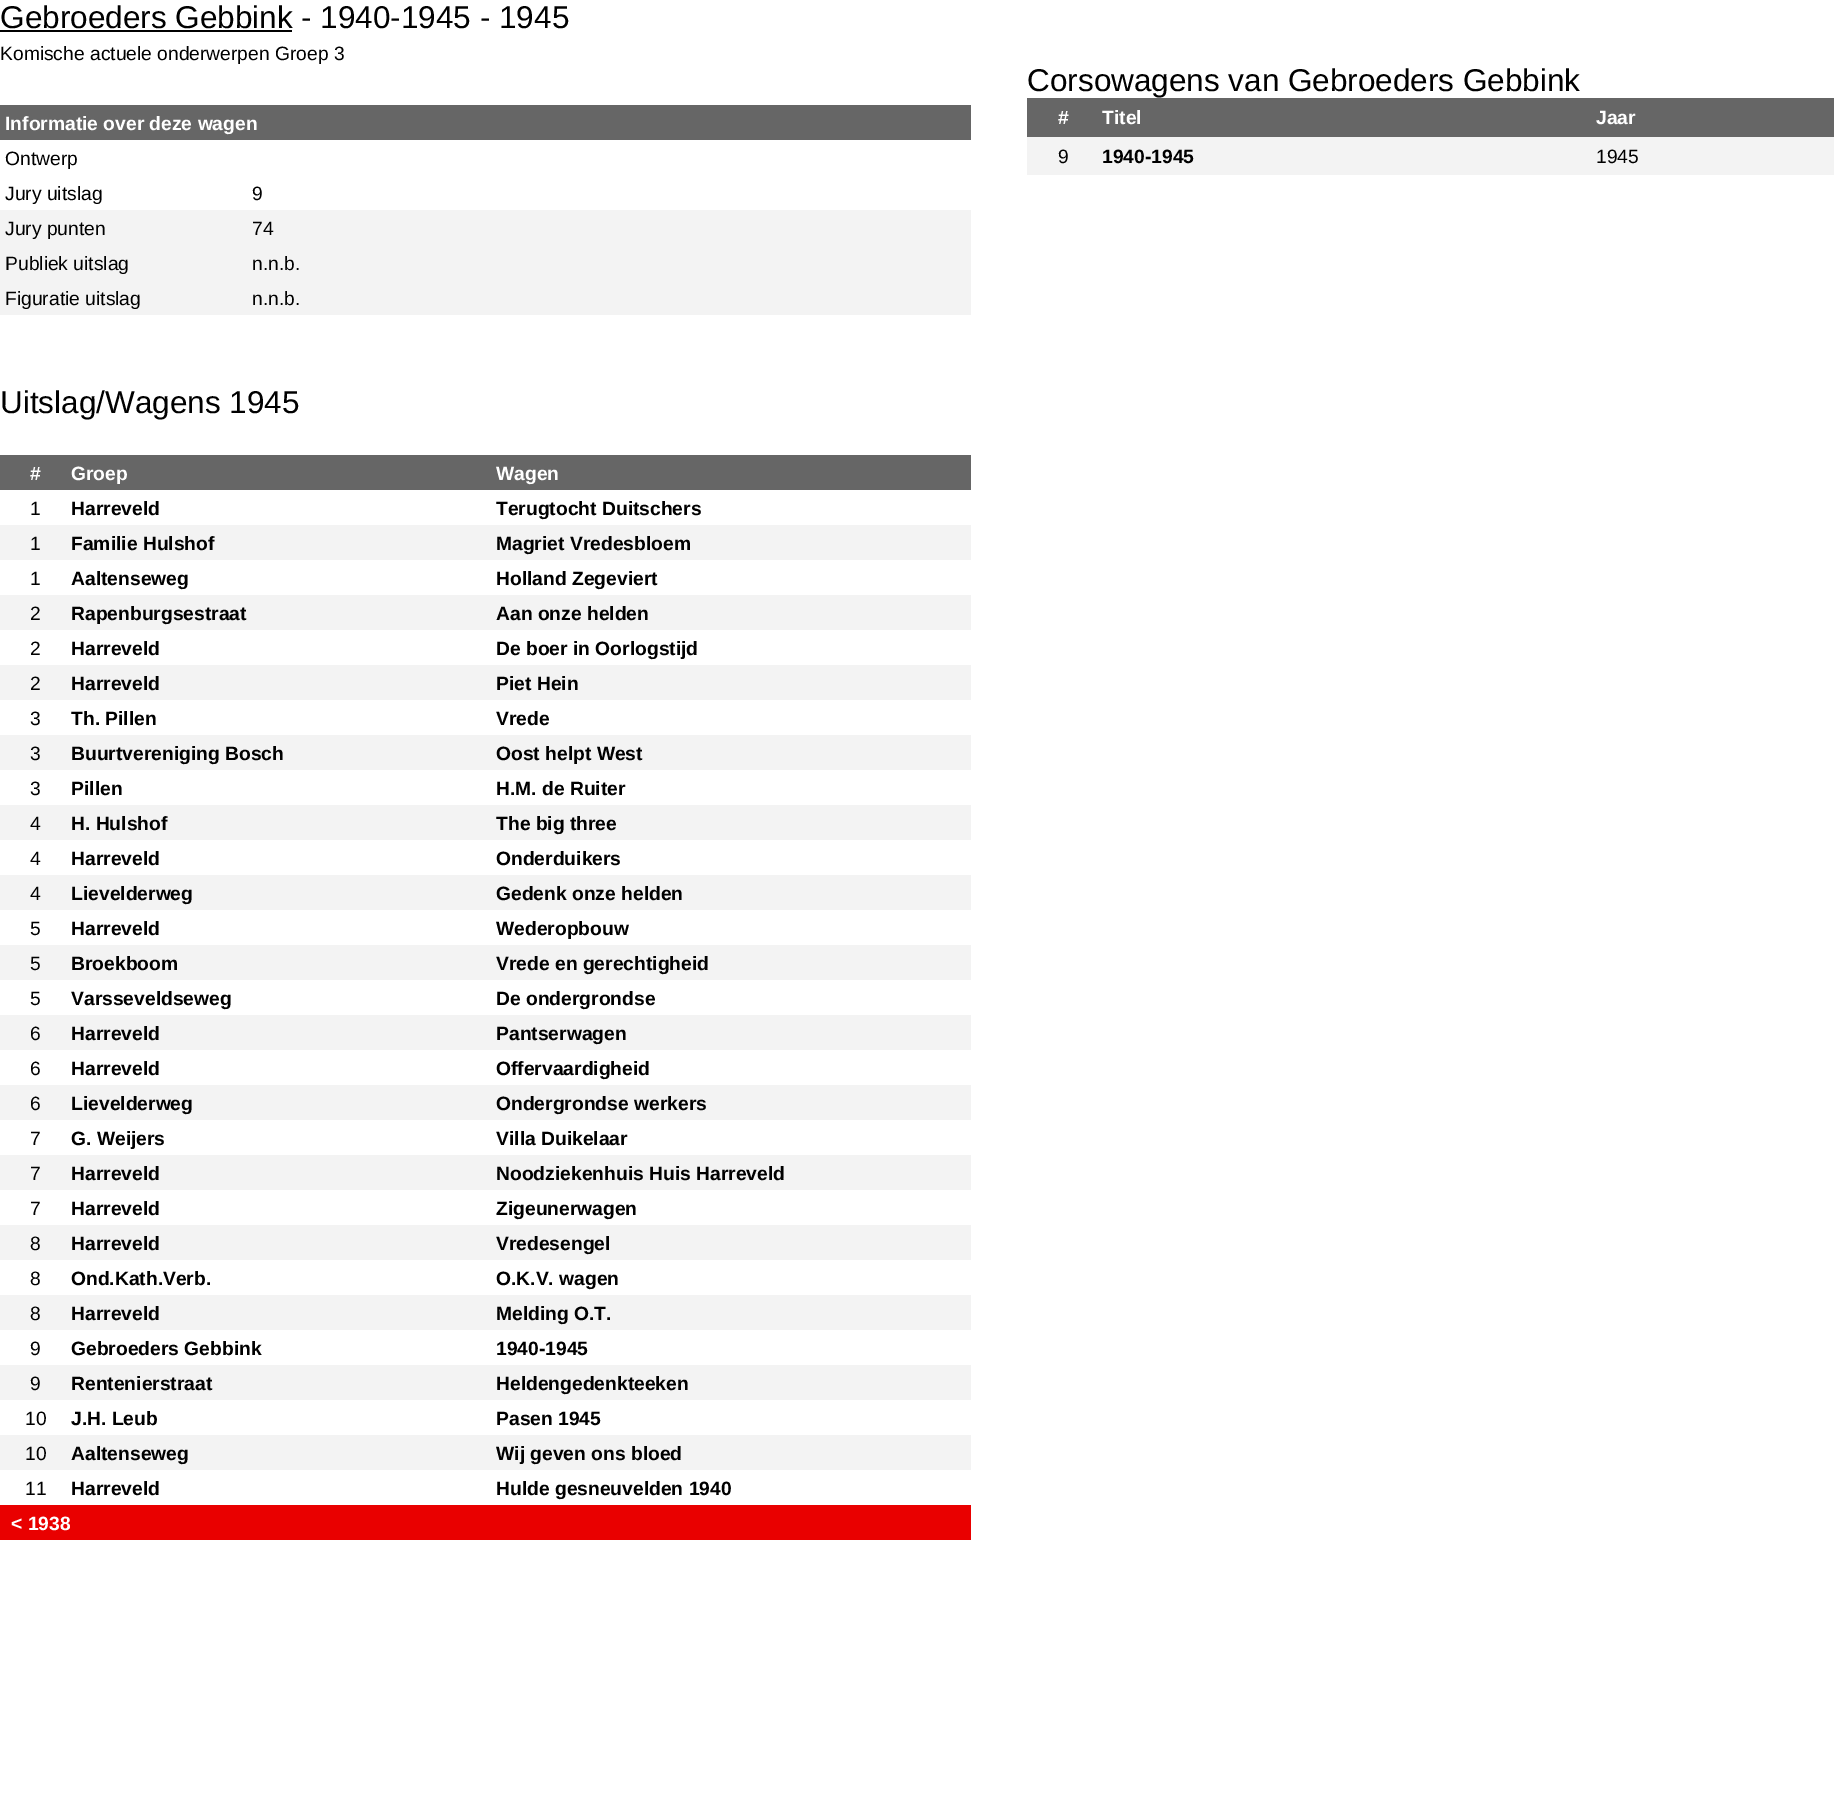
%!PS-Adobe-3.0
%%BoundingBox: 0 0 1834 1817
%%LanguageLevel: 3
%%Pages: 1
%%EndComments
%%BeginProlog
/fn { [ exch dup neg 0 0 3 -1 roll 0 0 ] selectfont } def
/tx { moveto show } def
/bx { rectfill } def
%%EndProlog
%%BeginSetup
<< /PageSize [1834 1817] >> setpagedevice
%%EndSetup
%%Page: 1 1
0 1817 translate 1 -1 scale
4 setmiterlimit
1 setgray
0 0 1834 1817 bx
/LiberationSans-Regular 31.5 fn
0 setgray
(Gebroeders Gebbink - 1940-1945 - 1945) 0 28 tx
0 30 292 2 bx
/LiberationSans-Regular 19.25 fn
(Komische actuele onderwerpen Groep 3) 0 60 tx
0.4 setgray
0 105 971 35 bx
/LiberationSans-Bold 19.25 fn
1 setgray
(Informatie over deze wagen) 5 130 tx
/LiberationSans-Regular 19.25 fn
0 setgray
(Ontwerp) 5 165 tx
(Jury uitslag) 5 200 tx
(9) 252 200 tx
0.953 setgray
0 210 971 35 bx
0 setgray
(Jury punten) 5 235 tx
(74) 252 235 tx
0.953 setgray
0 245 971 35 bx
0 setgray
(Publiek uitslag) 5 270 tx
(n.n.b.) 252 270 tx
0.953 setgray
0 280 971 35 bx
0 setgray
(Figuratie uitslag) 5 305 tx
(n.n.b.) 252 305 tx
/LiberationSans-Regular 31.5 fn
(Uitslag/Wagens 1945) 0 413 tx
0.4 setgray
0 455 971 35 bx
/LiberationSans-Bold 19.25 fn
1 setgray
(#) 30 480 tx
(Groep) 71 480 tx
(Wagen) 496 480 tx
/LiberationSans-Regular 19.25 fn
0 setgray
(1) 30 515 tx
/LiberationSans-Bold 19.25 fn
(Harreveld) 71 515 tx
(Terugtocht Duitschers) 496 515 tx
0.953 setgray
0 525 971 35 bx
/LiberationSans-Regular 19.25 fn
0 setgray
(1) 30 550 tx
/LiberationSans-Bold 19.25 fn
(Familie Hulshof) 71 550 tx
(Magriet Vredesbloem) 496 550 tx
/LiberationSans-Regular 19.25 fn
(1) 30 585 tx
/LiberationSans-Bold 19.25 fn
(Aaltenseweg) 71 585 tx
(Holland Zegeviert) 496 585 tx
0.953 setgray
0 595 971 35 bx
/LiberationSans-Regular 19.25 fn
0 setgray
(2) 30 620 tx
/LiberationSans-Bold 19.25 fn
(Rapenburgsestraat) 71 620 tx
(Aan onze helden) 496 620 tx
/LiberationSans-Regular 19.25 fn
(2) 30 655 tx
/LiberationSans-Bold 19.25 fn
(Harreveld) 71 655 tx
(De boer in Oorlogstijd) 496 655 tx
0.953 setgray
0 665 971 35 bx
/LiberationSans-Regular 19.25 fn
0 setgray
(2) 30 690 tx
/LiberationSans-Bold 19.25 fn
(Harreveld) 71 690 tx
(Piet Hein) 496 690 tx
/LiberationSans-Regular 19.25 fn
(3) 30 725 tx
/LiberationSans-Bold 19.25 fn
(Th. Pillen) 71 725 tx
(Vrede) 496 725 tx
0.953 setgray
0 735 971 35 bx
/LiberationSans-Regular 19.25 fn
0 setgray
(3) 30 760 tx
/LiberationSans-Bold 19.25 fn
(Buurtvereniging Bosch) 71 760 tx
(Oost helpt West) 496 760 tx
/LiberationSans-Regular 19.25 fn
(3) 30 795 tx
/LiberationSans-Bold 19.25 fn
(Pillen) 71 795 tx
(H.M. de Ruiter) 496 795 tx
0.953 setgray
0 805 971 35 bx
/LiberationSans-Regular 19.25 fn
0 setgray
(4) 30 830 tx
/LiberationSans-Bold 19.25 fn
(H. Hulshof) 71 830 tx
(The big three) 496 830 tx
/LiberationSans-Regular 19.25 fn
(4) 30 865 tx
/LiberationSans-Bold 19.25 fn
(Harreveld) 71 865 tx
(Onderduikers) 496 865 tx
0.953 setgray
0 875 971 35 bx
/LiberationSans-Regular 19.25 fn
0 setgray
(4) 30 900 tx
/LiberationSans-Bold 19.25 fn
(Lievelderweg) 71 900 tx
(Gedenk onze helden) 496 900 tx
/LiberationSans-Regular 19.25 fn
(5) 30 935 tx
/LiberationSans-Bold 19.25 fn
(Harreveld) 71 935 tx
(Wederopbouw) 496 935 tx
0.953 setgray
0 945 971 35 bx
/LiberationSans-Regular 19.25 fn
0 setgray
(5) 30 970 tx
/LiberationSans-Bold 19.25 fn
(Broekboom) 71 970 tx
(Vrede en gerechtigheid) 496 970 tx
/LiberationSans-Regular 19.25 fn
(5) 30 1005 tx
/LiberationSans-Bold 19.25 fn
(Varsseveldseweg) 71 1005 tx
(De ondergrondse) 496 1005 tx
0.953 setgray
0 1015 971 35 bx
/LiberationSans-Regular 19.25 fn
0 setgray
(6) 30 1040 tx
/LiberationSans-Bold 19.25 fn
(Harreveld) 71 1040 tx
(Pantserwagen) 496 1040 tx
/LiberationSans-Regular 19.25 fn
(6) 30 1075 tx
/LiberationSans-Bold 19.25 fn
(Harreveld) 71 1075 tx
(Offervaardigheid) 496 1075 tx
0.953 setgray
0 1085 971 35 bx
/LiberationSans-Regular 19.25 fn
0 setgray
(6) 30 1110 tx
/LiberationSans-Bold 19.25 fn
(Lievelderweg) 71 1110 tx
(Ondergrondse werkers) 496 1110 tx
/LiberationSans-Regular 19.25 fn
(7) 30 1145 tx
/LiberationSans-Bold 19.25 fn
(G. Weijers) 71 1145 tx
(Villa Duikelaar) 496 1145 tx
0.953 setgray
0 1155 971 35 bx
/LiberationSans-Regular 19.25 fn
0 setgray
(7) 30 1180 tx
/LiberationSans-Bold 19.25 fn
(Harreveld) 71 1180 tx
(Noodziekenhuis Huis Harreveld) 496 1180 tx
/LiberationSans-Regular 19.25 fn
(7) 30 1215 tx
/LiberationSans-Bold 19.25 fn
(Harreveld) 71 1215 tx
(Zigeunerwagen) 496 1215 tx
0.953 setgray
0 1225 971 35 bx
/LiberationSans-Regular 19.25 fn
0 setgray
(8) 30 1250 tx
/LiberationSans-Bold 19.25 fn
(Harreveld) 71 1250 tx
(Vredesengel) 496 1250 tx
/LiberationSans-Regular 19.25 fn
(8) 30 1285 tx
/LiberationSans-Bold 19.25 fn
(Ond.Kath.Verb.) 71 1285 tx
(O.K.V. wagen) 496 1285 tx
0.953 setgray
0 1295 971 35 bx
/LiberationSans-Regular 19.25 fn
0 setgray
(8) 30 1320 tx
/LiberationSans-Bold 19.25 fn
(Harreveld) 71 1320 tx
(Melding O.T.) 496 1320 tx
/LiberationSans-Regular 19.25 fn
(9) 30 1355 tx
/LiberationSans-Bold 19.25 fn
(Gebroeders Gebbink) 71 1355 tx
(1940-1945) 496 1355 tx
0.953 setgray
0 1365 971 35 bx
/LiberationSans-Regular 19.25 fn
0 setgray
(9) 30 1390 tx
/LiberationSans-Bold 19.25 fn
(Rentenierstraat) 71 1390 tx
(Heldengedenkteeken) 496 1390 tx
/LiberationSans-Regular 19.25 fn
(10) 25 1425 tx
/LiberationSans-Bold 19.25 fn
(J.H. Leub) 71 1425 tx
(Pasen 1945) 496 1425 tx
0.953 setgray
0 1435 971 35 bx
/LiberationSans-Regular 19.25 fn
0 setgray
(10) 25 1460 tx
/LiberationSans-Bold 19.25 fn
(Aaltenseweg) 71 1460 tx
(Wij geven ons bloed) 496 1460 tx
/LiberationSans-Regular 19.25 fn
(11) 25 1495 tx
/LiberationSans-Bold 19.25 fn
(Harreveld) 71 1495 tx
(Hulde gesneuvelden 1940) 496 1495 tx
0.914 0 0 setrgbcolor
0 1505 971 35 bx
1 setgray
(< 1938) 11 1530 tx
/LiberationSans-Regular 31.5 fn
0 setgray
(Corsowagens van Gebroeders Gebbink) 1027 91 tx
0.4 setgray
1027 98 807 39 bx
/LiberationSans-Bold 19.25 fn
1 setgray
(#) 1058 124 tx
(Titel) 1102 124 tx
(Jaar) 1596 124 tx
0.953 setgray
1027 137 807 38 bx
/LiberationSans-Regular 19.25 fn
0 setgray
(9) 1058 163 tx
/LiberationSans-Bold 19.25 fn
(1940-1945) 1102 163 tx
/LiberationSans-Regular 19.25 fn
(1945) 1596 163 tx
showpage
%%EOF
